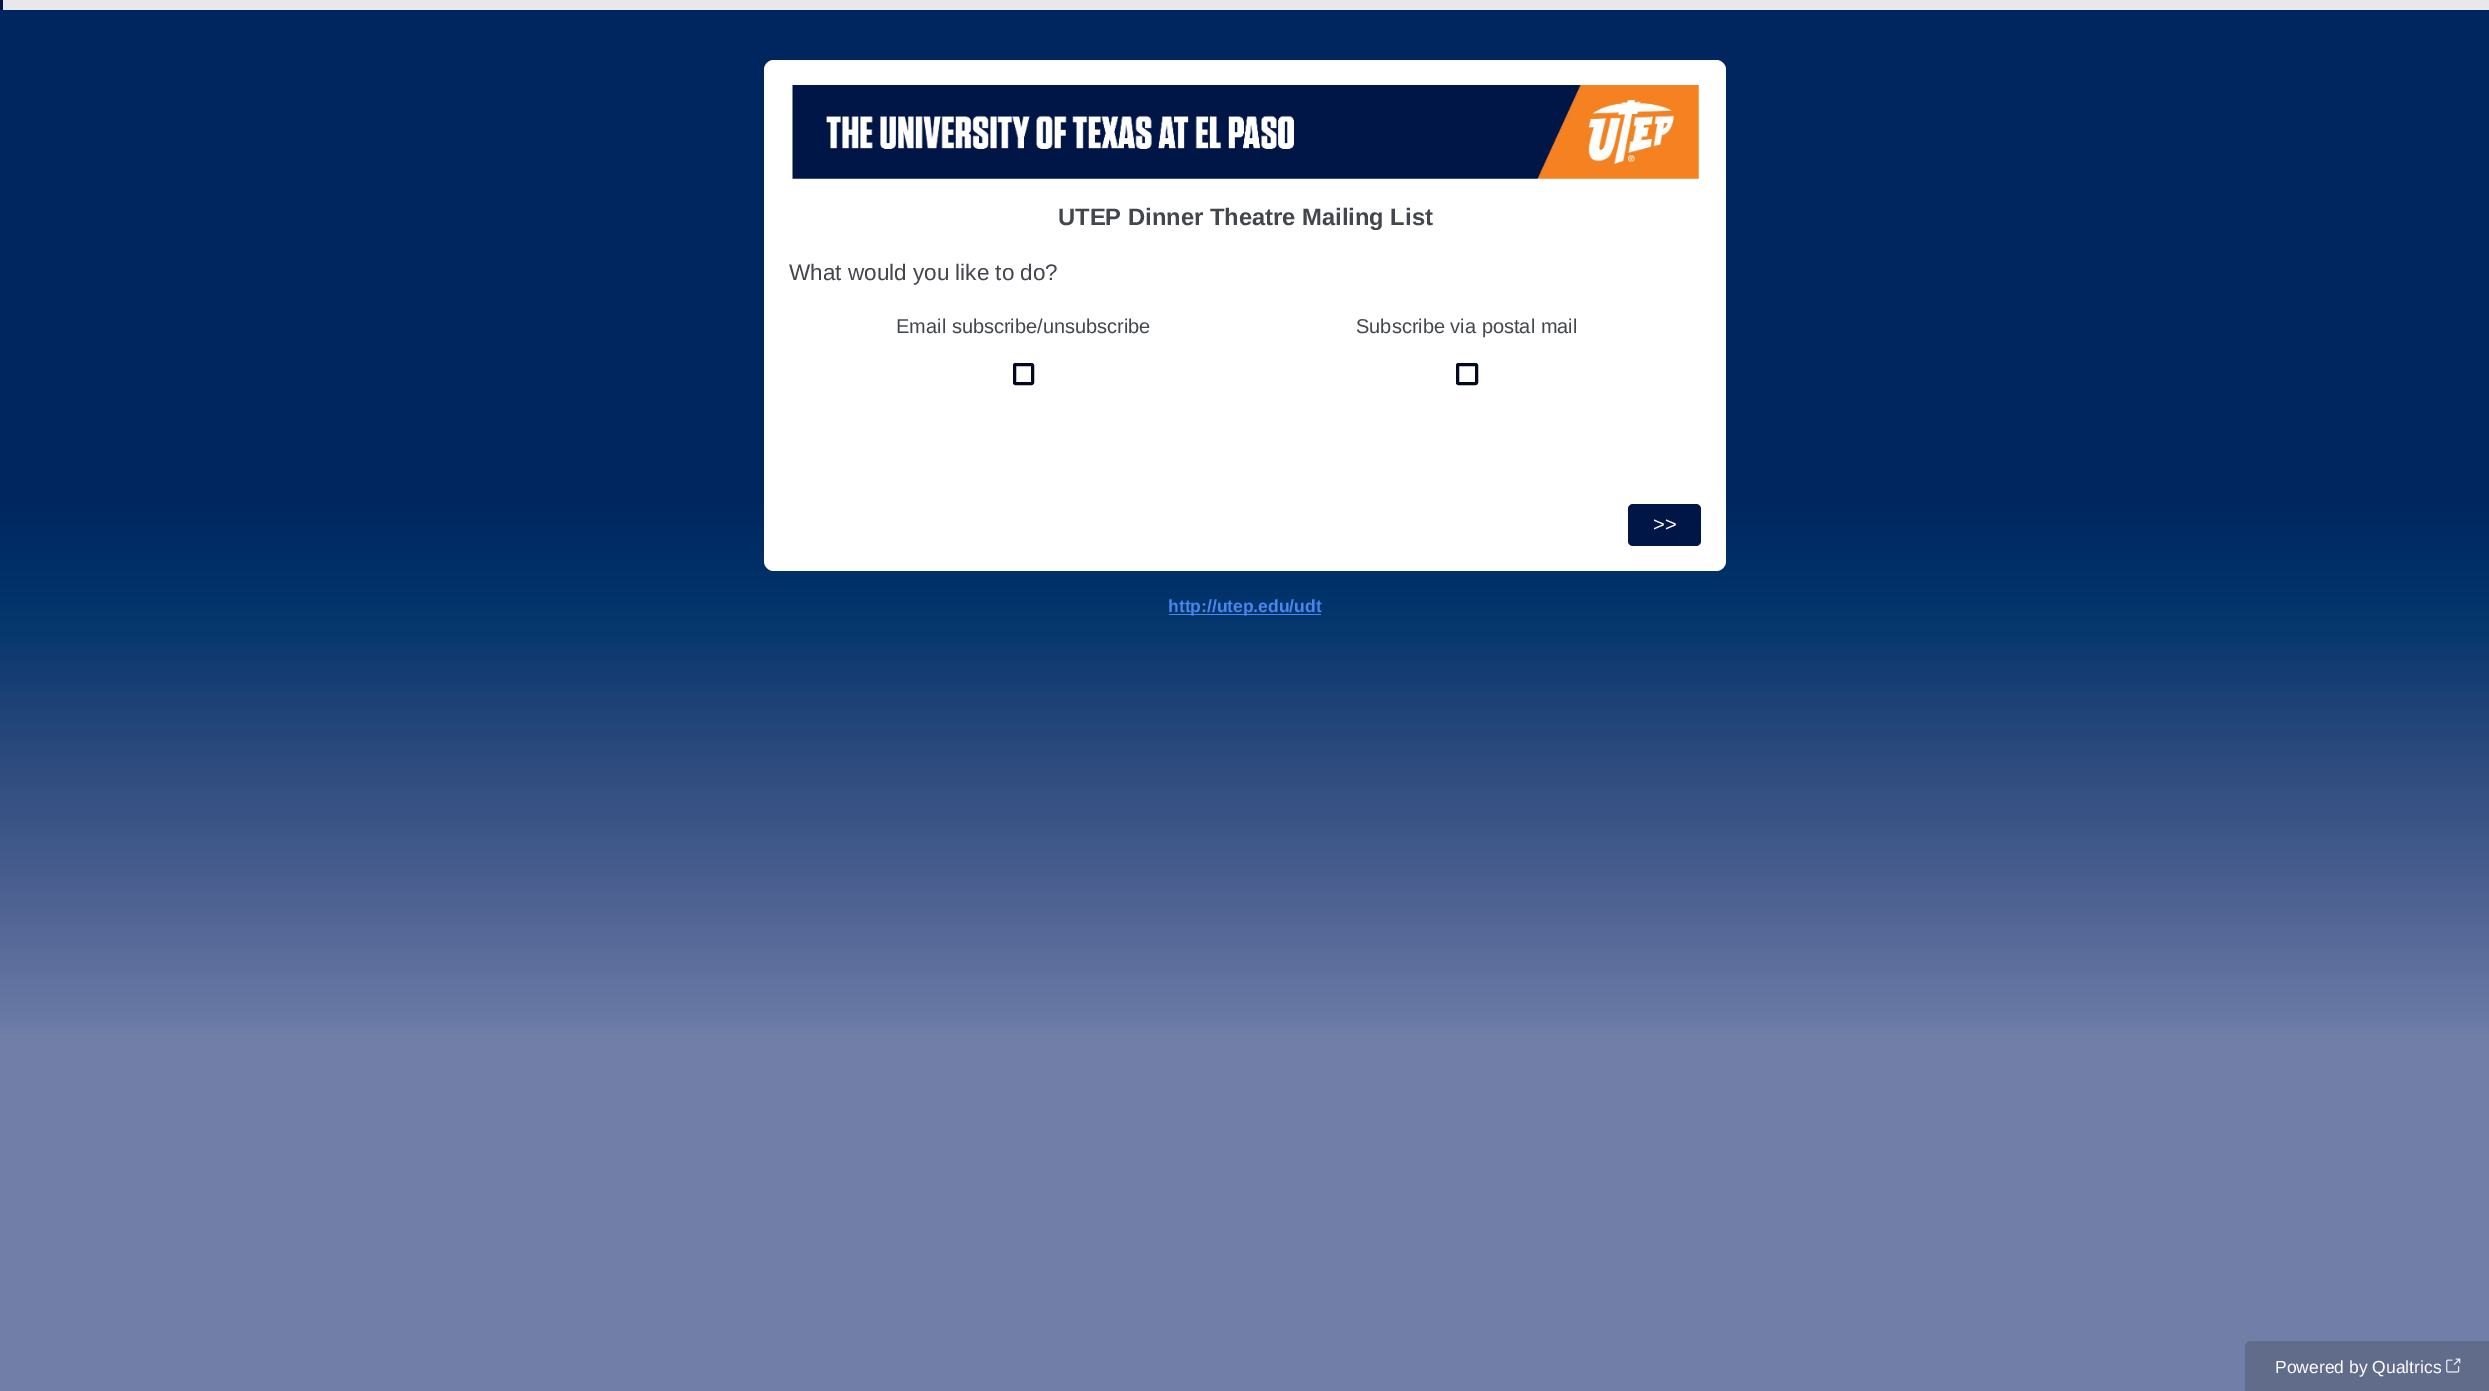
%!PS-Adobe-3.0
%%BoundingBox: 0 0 2489 1391
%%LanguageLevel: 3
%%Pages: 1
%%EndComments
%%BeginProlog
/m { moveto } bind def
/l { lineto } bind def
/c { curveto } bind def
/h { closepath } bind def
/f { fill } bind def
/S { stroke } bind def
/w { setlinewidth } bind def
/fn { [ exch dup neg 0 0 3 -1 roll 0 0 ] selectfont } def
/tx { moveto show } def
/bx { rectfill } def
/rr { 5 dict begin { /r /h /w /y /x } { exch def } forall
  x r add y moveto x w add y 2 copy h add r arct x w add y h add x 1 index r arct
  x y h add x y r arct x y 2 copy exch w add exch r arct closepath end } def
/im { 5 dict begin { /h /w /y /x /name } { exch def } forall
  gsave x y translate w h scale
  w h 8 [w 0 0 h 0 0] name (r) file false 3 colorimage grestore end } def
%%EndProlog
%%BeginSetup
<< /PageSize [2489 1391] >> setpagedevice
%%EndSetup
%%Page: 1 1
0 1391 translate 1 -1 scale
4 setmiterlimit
0.443 0.498 0.659 setrgbcolor
0 0 2489 1391 bx
(image0.raw) 0 10 2489 1024 im
0 0.086 0.278 setrgbcolor
0 0 3 10 bx
0.91 0.91 0.922 setrgbcolor
3 0 2486 10 bx
1 setgray
764 60 962 511 10 rr f
(image1.raw) 792 85 907 94 im
/LiberationSans-Bold 23.75 fn
0.263 0.275 0.302 setrgbcolor
(UTEP Dinner Theatre Mailing List) 1058 225 tx
/LiberationSans-Regular 22.5 fn
(What would you like to do?) 789 280 tx
/LiberationSans-Regular 20 fn
(Email subscribe/unsubscribe) 896 333 tx
0 0.035 0.118 setrgbcolor
3 w
1014.5 364.5 18 19 1 rr S
0.263 0.275 0.302 setrgbcolor
(Subscribe via postal mail) 1356 333 tx
0 0.035 0.118 setrgbcolor
1457.5 364.5 19 19 1 rr S
0 0.086 0.278 setrgbcolor
1628 504 73 42 5 rr f
1 setgray
(>>) 1653 531 tx
0.294 0.525 0.933 setrgbcolor
1169 614 152 1 bx
/LiberationSans-Bold 17.5 fn
(http://utep.edu/udt) 1168 612 tx
0.38 0.42 0.541 setrgbcolor
2251 1341 m 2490 1341 l 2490 1391 l 2245 1391 l 2245 1347 l 2245 1343.5 2247.5 1341 2251 1341 c h f
/LiberationSans-Regular 17.5 fn
1 setgray
(Powered by Qualtrics) 2275 1373 tx
(image2.raw) 2446 1358 15 15 im
showpage
%%EOF
